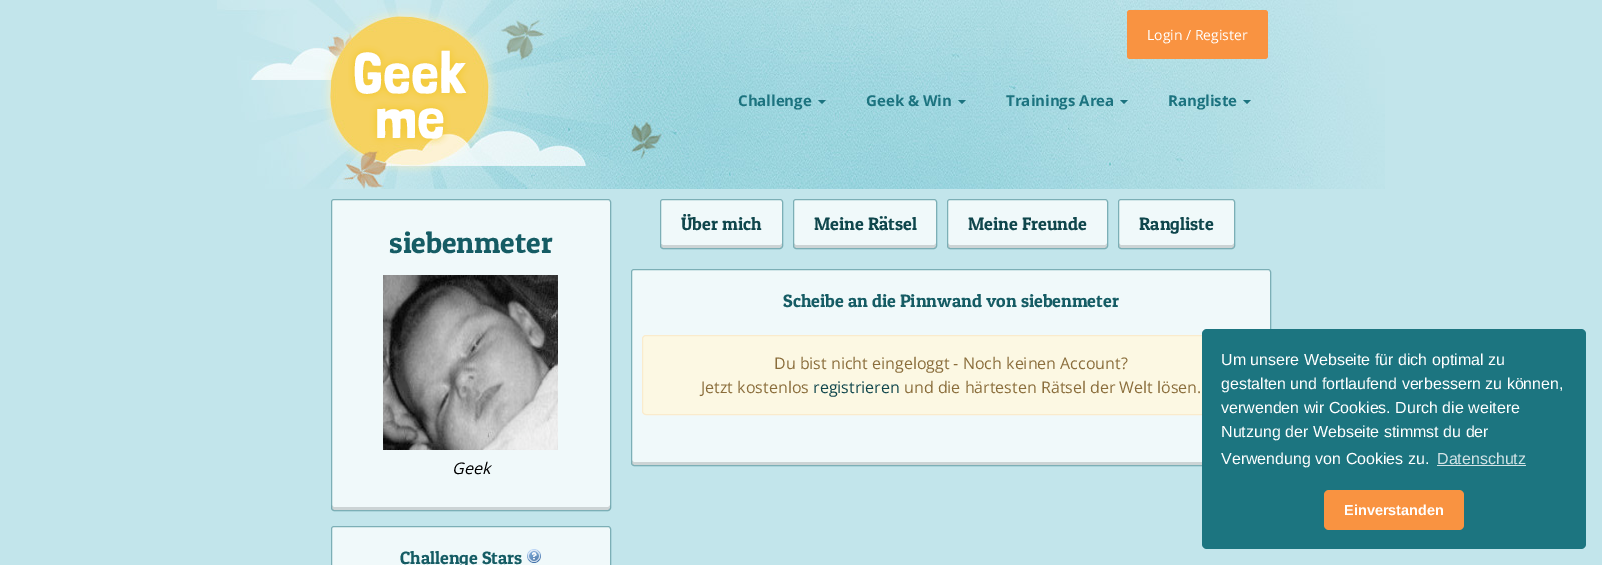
%!PS-Adobe-3.0
%%BoundingBox: 0 0 1602 565
%%LanguageLevel: 3
%%Pages: 1
%%EndComments
%%BeginProlog
/m { moveto } bind def
/l { lineto } bind def
/c { curveto } bind def
/h { closepath } bind def
/f { fill } bind def
/S { stroke } bind def
/q { gsave } bind def
/Q { grestore } bind def
/fn { [ exch dup neg 0 0 3 -1 roll 0 0 ] selectfont } def
/tx { moveto show } def
/bx { rectfill } def
/al { dup .setfillconstantalpha .setstrokeconstantalpha } def
/rr { 5 dict begin { /r /h /w /y /x } { exch def } forall
  x r add y moveto x w add y 2 copy h add r arct x w add y h add x 1 index r arct
  x y h add x y r arct x y 2 copy exch w add exch r arct closepath end } def
/im { 5 dict begin { /h /w /y /x /name } { exch def } forall
  gsave x y translate w h scale
  w h 8 [w 0 0 h 0 0] name (r) file false 3 colorimage grestore end } def
%%EndProlog
%%BeginSetup
<< /PageSize [1602 565] /PageUsesTransparency true >> setpagedevice
%%EndSetup
%%Page: 1 1
0 .pushpdf14devicefilter
0 565 translate 1 -1 scale
4 setmiterlimit
0.761 0.898 0.922 setrgbcolor
0 0 1602 565 bx
(image0.raw) 217 0 1168 189 im
0.976 0.576 0.255 setrgbcolor
1127 10 141 49 3 rr f
/OpenSans-Regular 14 fn
1 setgray
(Login / Register) 1147 40 tx
(image1.raw) 348 45 122 101 im
/OpenSans-Bold 15 fn
0.11 0.451 0.498 setrgbcolor
(Challenge) 738 106 tx
818 100 m 826 100 l 822 104 l h f
(Geek & Win) 866 106 tx
958 100 m 966 100 l 962 104 l h f
(Trainings Area) 1006 106 tx
1120 100 m 1128 100 l 1124 104 l h f
(Rangliste) 1168 106 tx
1243 100 m 1251 100 l 1247 104 l h f
0.941 0.976 0.98 setrgbcolor
331 199 280 312 3 rr f
0.8 0.831 0.835 setrgbcolor
332 505 m 332 507 331 510 334 510 c 609 510 l 611 509 610 506 610 505 c 610 506 609 507 608 507 c 334 507 l 333 507 332 506 332 505 c h f
0.55 al
0.11 0.451 0.494 setrgbcolor
331.5 199.5 279 311 2.5 rr S
/PatuaOne-Regular 30 fn
1 al
0.082 0.361 0.392 setrgbcolor
(siebenmeter) 389 253 tx
(image2.raw) 383 275 175 175 im
/OpenSans-Italic 16 fn
0 setgray
(Geek) 452 474 tx
0.941 0.976 0.98 setrgbcolor
331 526 280 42 3 rr f
0.55 al
0.11 0.451 0.494 setrgbcolor
331.5 526.5 279 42 2.5 rr S
/PatuaOne-Regular 18 fn
1 al
0.082 0.361 0.392 setrgbcolor
(Challenge Stars) 400 564 tx
(image3.raw) 527 549 14 14 im
0.941 0.976 0.98 setrgbcolor
660 199 123 50 3 rr f
0.8 0.831 0.835 setrgbcolor
661 243 m 661 246 l 661 247 662 248 663 248 c 780 248 l 781 248 782 247 782 246 c 782 243 l 782 244 781 245 780 245 c 663 245 l 661 244 l h f
0.55 al
0.11 0.451 0.494 setrgbcolor
660.5 199.5 122 49 2.5 rr S
1 al
0.059 0.275 0.298 setrgbcolor
(Über mich) 681 230 tx
0.941 0.976 0.98 setrgbcolor
793 199 144 50 3 rr f
0.8 0.831 0.835 setrgbcolor
794 243 m 794 246 l 794 247 795 248 796 248 c 934 248 l 935 248 936 247 936 246 c 936 243 l 936 244 935 245 934 245 c 796 245 l 795 245 794 244 794 243 c h f
0.55 al
0.11 0.451 0.494 setrgbcolor
793.5 199.5 143 49 2.5 rr S
1 al
0.059 0.275 0.298 setrgbcolor
(Meine Rätsel) 814 230 tx
0.941 0.976 0.98 setrgbcolor
947 199 161 50 3 rr f
0.8 0.831 0.835 setrgbcolor
948 243 m 948 246 l 948 247 949 248 950 248 c 1105 248 l 1106 248 1107 247 1107 246 c 1107 243 l 1107 244 1106 245 1105 245 c 950 245 l 949 245 948 244 948 243 c h f
0.55 al
0.11 0.451 0.494 setrgbcolor
947.5 199.5 160 49 2.5 rr S
1 al
0.059 0.275 0.298 setrgbcolor
(Meine Freunde) 968 230 tx
0.941 0.976 0.98 setrgbcolor
1118 199 117 50 3 rr f
0.8 0.831 0.835 setrgbcolor
1119 243 m 1119 246 l 1119 247 1120 248 1121 248 c 1232 248 l 1233 248 1234 247 1234 246 c 1234 243 l 1234 244 1233 245 1232 245 c 1121 245 l 1120 245 1119 244 1119 243 c h f
0.55 al
0.11 0.451 0.494 setrgbcolor
1118.5 199.5 116 49 2.5 rr S
1 al
0.059 0.275 0.298 setrgbcolor
(Rangliste) 1139 230 tx
0.941 0.976 0.98 setrgbcolor
631 269 640 197 3 rr f
0.8 0.831 0.835 setrgbcolor
632 460 m 632 463 l 632 464 633 465 634 465 c 1268 465 l 1269 465 1270 464 1270 463 c 1270 460 l 1270 461 1269 462 1268 462 c 634 462 l 633 462 632 461 632 460 c h f
0.55 al
0.11 0.451 0.494 setrgbcolor
631.5 269.5 639 196 2.5 rr S
1 al
0.082 0.361 0.392 setrgbcolor
(Scheibe an die Pinnwand von siebenmeter) 783 307 tx
0.988 0.973 0.89 setrgbcolor
642.5 335.5 617 79 3.5 rr q f Q
0.98 0.922 0.8 setrgbcolor
S
/OpenSans-Regular 16 fn
0.541 0.427 0.231 setrgbcolor
(Du bist nicht eingeloggt - Noch keinen Account?) 774 369 tx
(Jetzt kostenlos) 701 393 tx
0.059 0.275 0.298 setrgbcolor
(registrieren) 813 393 tx
0.541 0.427 0.231 setrgbcolor
(und die härtesten Rätsel der Welt lösen.) 904 393 tx
0.11 0.459 0.502 setrgbcolor
1202 329 384 220 5 rr f
/LiberationSans-Regular 16 fn
1 setgray
(Um unsere Webseite für dich optimal zu) 1221 365 tx
(gestalten und fortlaufend verbessern zu können,) 1221 389 tx
(verwenden wir Cookies. Durch die weitere) 1221 413 tx
(Nutzung der Webseite stimmst du der) 1221 437 tx
(Verwendung von Cookies zu.) 1221 464 tx
0.824 0.89 0.902 setrgbcolor
(Datenschutz) 1437 464 tx
1437 465 89 1 bx
0.976 0.576 0.255 setrgbcolor
1324 490 140 40 5 rr f
/LiberationSans-Bold 14.5 fn
1 setgray
(Einverstanden) 1344 515 tx
.poppdf14devicefilter showpage
%%EOF
